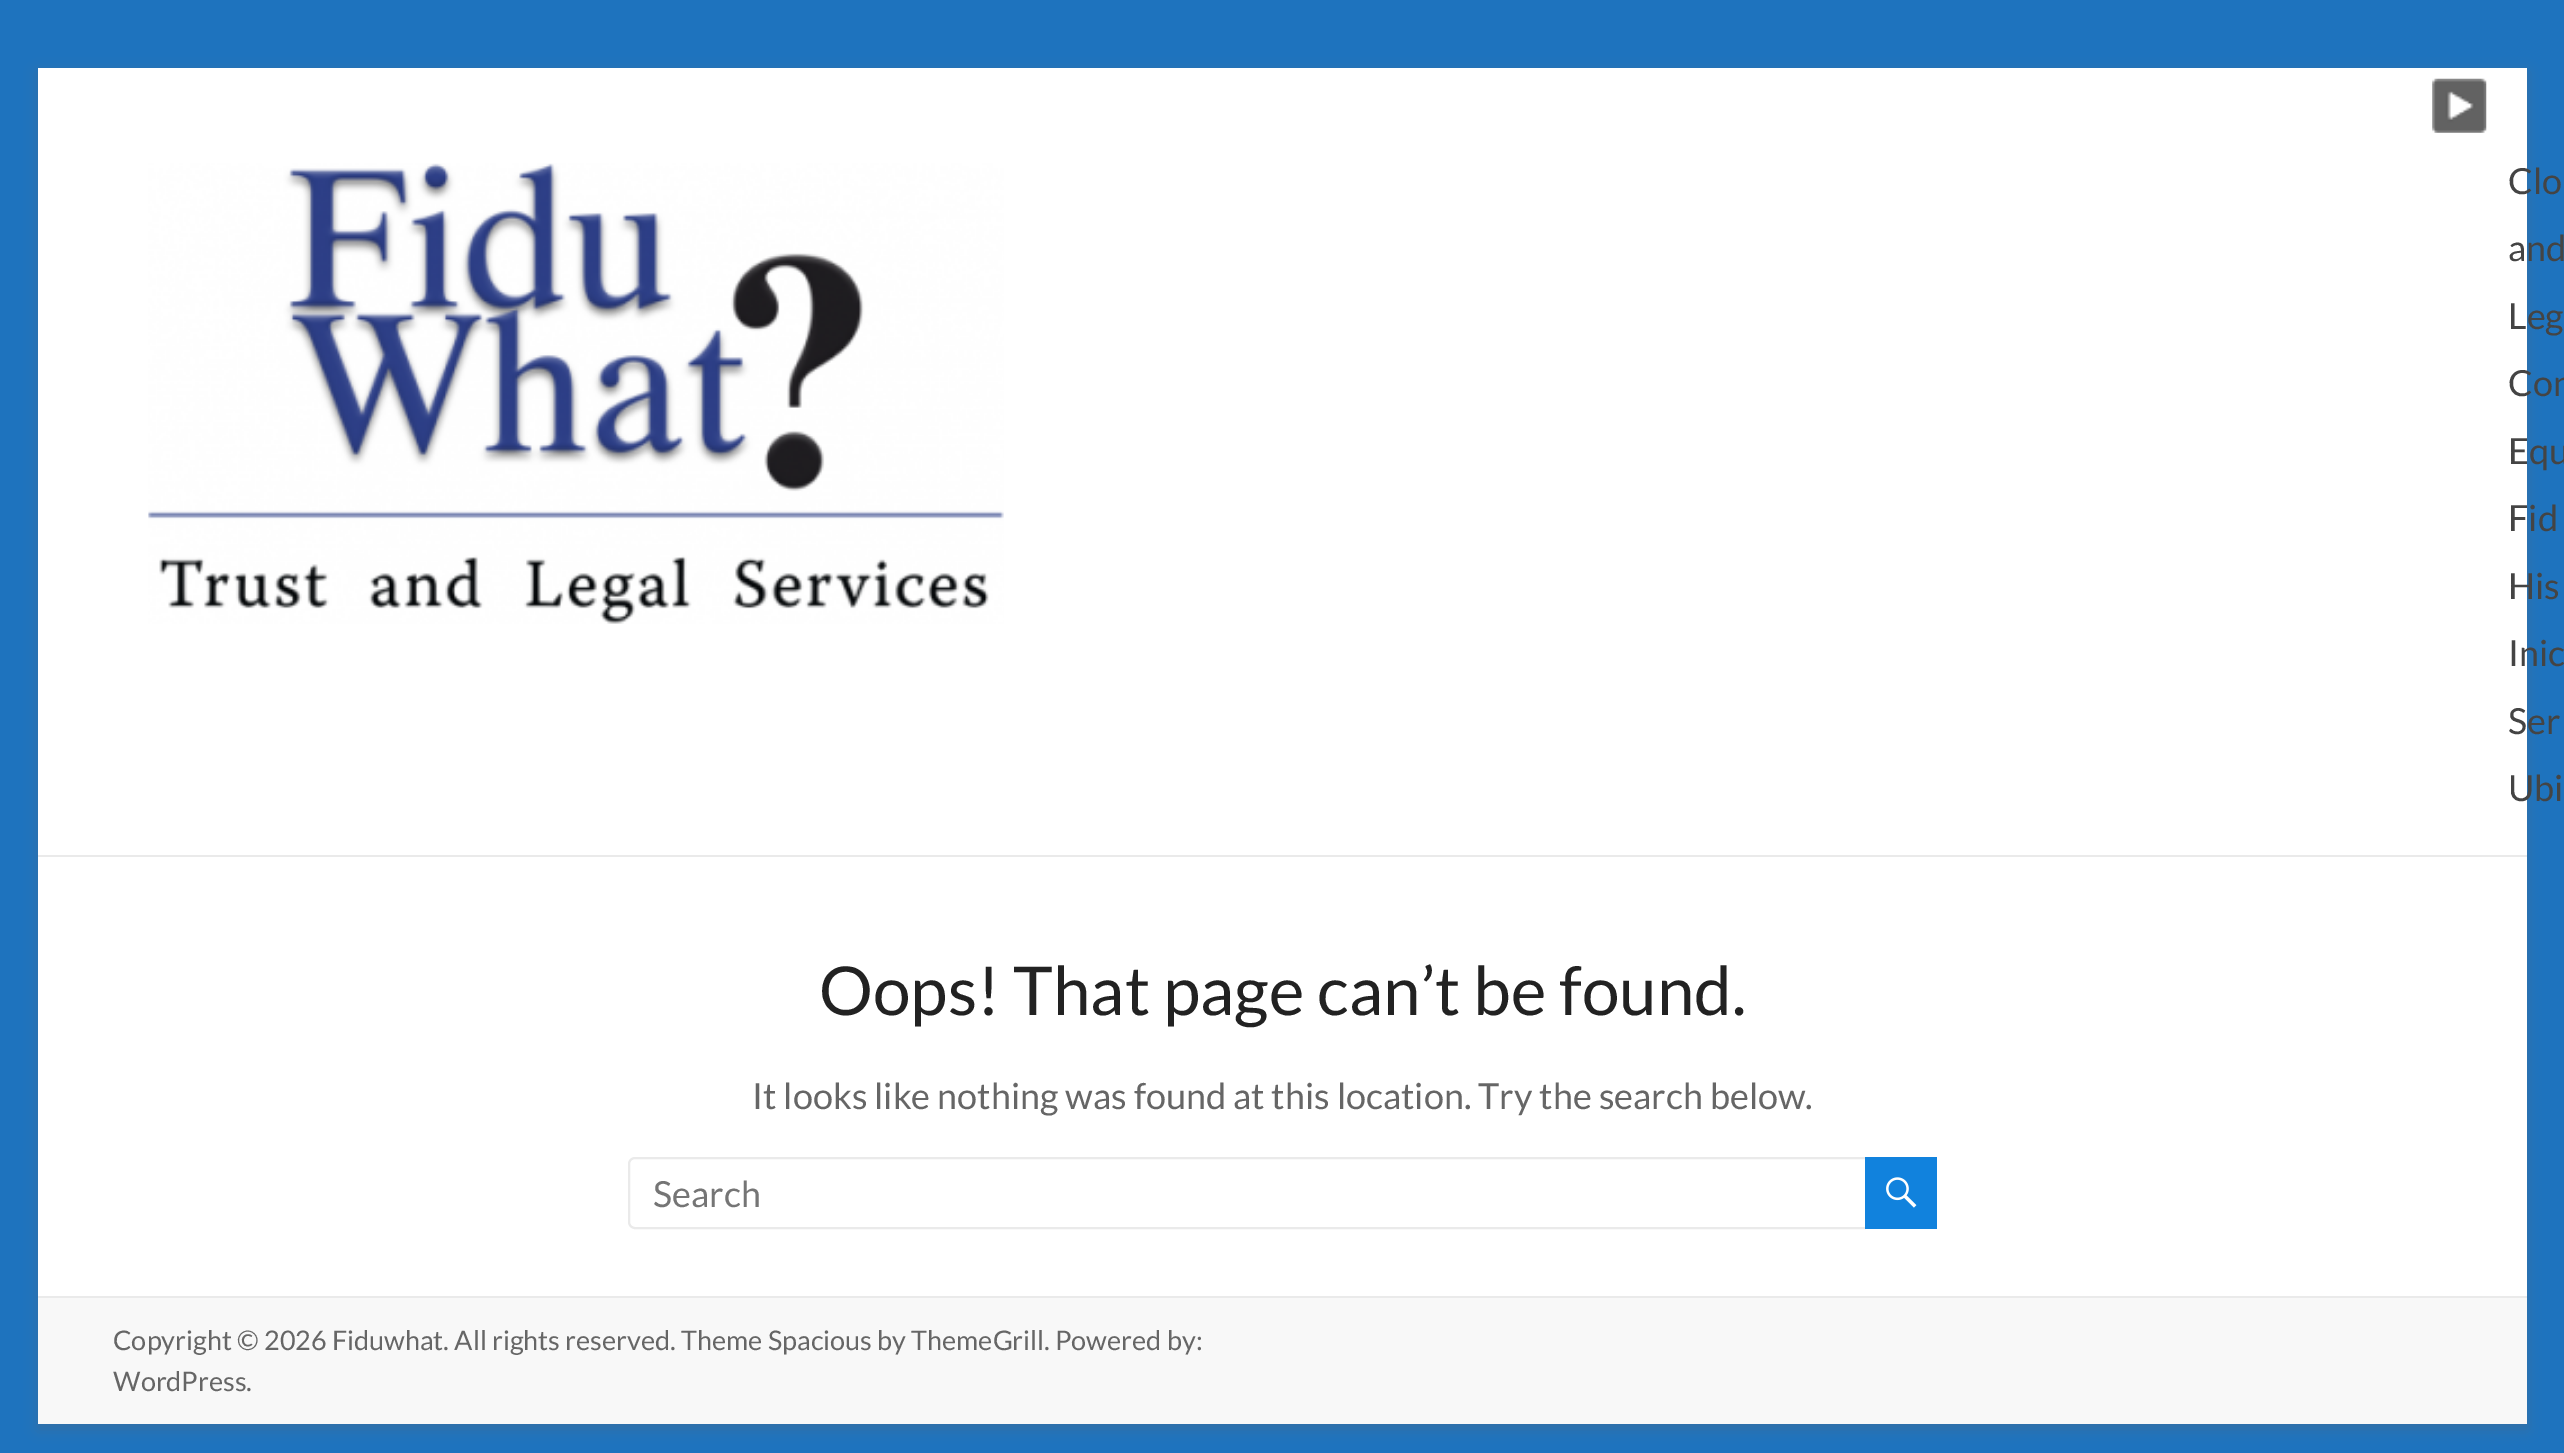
%!PS-Adobe-3.0
%%BoundingBox: 0 0 2564 1453
%%LanguageLevel: 3
%%Pages: 1
%%EndComments
%%BeginProlog
/S { stroke } bind def
/w { setlinewidth } bind def
/fn { [ exch dup neg 0 0 3 -1 roll 0 0 ] selectfont } def
/tx { moveto show } def
/bx { rectfill } def
/al { dup .setfillconstantalpha .setstrokeconstantalpha } def
/rr { 5 dict begin { /r /h /w /y /x } { exch def } forall
  x r add y moveto x w add y 2 copy h add r arct x w add y h add x 1 index r arct
  x y h add x y r arct x y 2 copy exch w add exch r arct closepath end } def
/sh { 12 dict begin { /a /b /q /h /w /y /x } { exch def } forall gsave /was 0 def
  9 -2 -9 { dup b mul 4 div /e exch def 1 sub .425 mul 2.718 exch exp 1 add a .99 .min exch div /now exch def
    1 1 now sub 1 was sub div sub al /was now def
    w h .min e 2 mul add 0 gt { x e sub y e sub w e 2 mul add h e 2 mul add
      q e add b .6 mul add w h .min 2 div e add .min 0 .max rr fill } if } for grestore end } def
/im { 5 dict begin { /h /w /y /x /name } { exch def } forall
  gsave x y translate w h scale
  w h 8 [w 0 0 h 0 0] name (r) file false 3 colorimage grestore end } def
%%EndProlog
%%BeginSetup
<< /PageSize [2564 1453] /PageUsesTransparency true >> setpagedevice
%%EndSetup
%%Page: 1 1
0 .pushpdf14devicefilter
0 1453 translate 1 -1 scale
4 setmiterlimit
0.118 0.451 0.745 setrgbcolor
0 0 2564 1453 bx
0.392 setgray
38 72 2489 1357 0 7 0.3 sh
1 setgray
38 68 2489 1228 bx
(image0.raw) 2432 78 55 55 im
0.918 setgray
38 855 2489 2 bx
(image1.raw) 148 163 856 461 im
/Lato-Regular 36 fn
0.267 setgray
(Clo) 2508 194 tx
(and) 2508 261 tx
(Leg) 2508 329 tx
(Con) 2508 396 tx
(Equ) 2508 464 tx
(Fid) 2508 531 tx
(His) 2508 599 tx
(Inic) 2508 666 tx
(Ser) 2508 734 tx
(Ubi) 2508 801 tx
/Lato-Regular 67.5 fn
0.133 setgray
(Oops! That page can’t be found.) 819 1015 tx
/Lato-Regular 36 fn
0.4 setgray
(It looks like nothing was found at this location. Try the search below.) 752 1109 tx
0.918 setgray
2 w
629 1158 1242 70 6 rr S
0.459 setgray
(Search) 653 1207 tx
0.067 0.51 0.867 setrgbcolor
1865 1157 72 72 bx
(image2.raw) 1886 1177 31 31 im
0.973 setgray
38 1298 2489 126 bx
0.918 setgray
38 1296 2489 2 bx
/Lato-Regular 27 fn
0.4 setgray
(Copyright © 2026 Fiduwhat. All rights reserved. Theme Spacious by ThemeGrill. Powered by:) 113 1350 tx
(WordPress.) 113 1391 tx
.poppdf14devicefilter showpage
%%EOF
